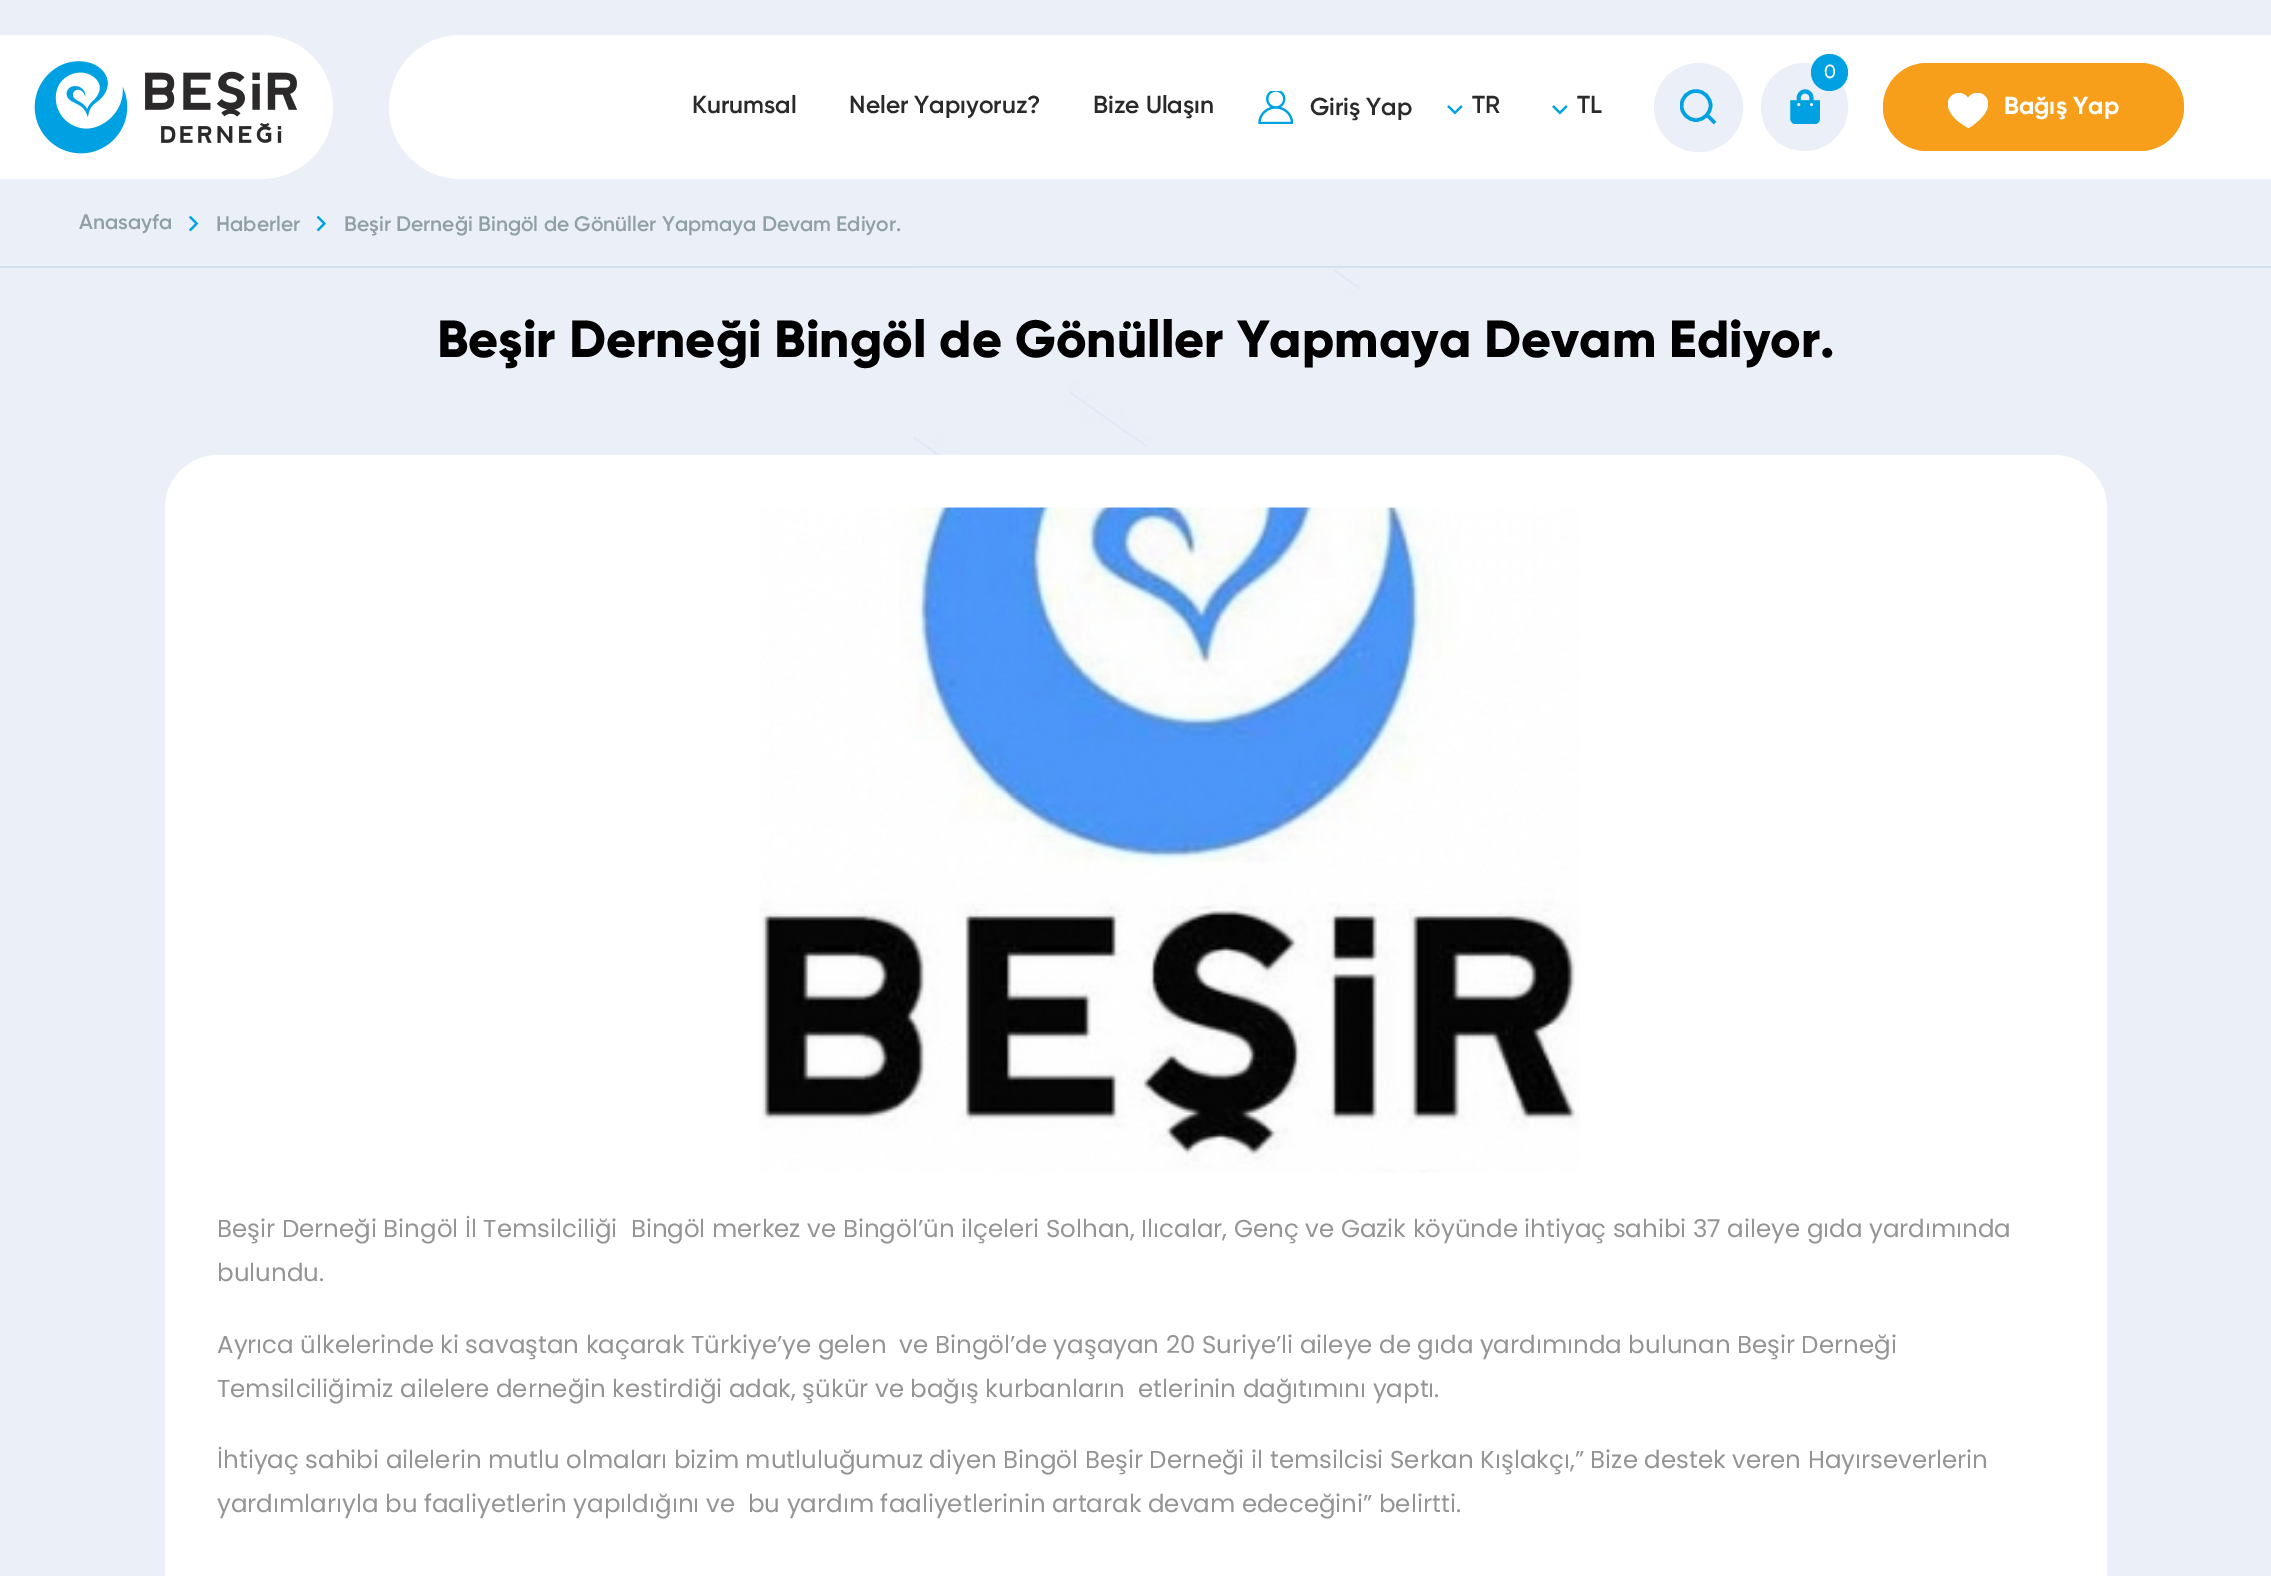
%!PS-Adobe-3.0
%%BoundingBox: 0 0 2271 1576
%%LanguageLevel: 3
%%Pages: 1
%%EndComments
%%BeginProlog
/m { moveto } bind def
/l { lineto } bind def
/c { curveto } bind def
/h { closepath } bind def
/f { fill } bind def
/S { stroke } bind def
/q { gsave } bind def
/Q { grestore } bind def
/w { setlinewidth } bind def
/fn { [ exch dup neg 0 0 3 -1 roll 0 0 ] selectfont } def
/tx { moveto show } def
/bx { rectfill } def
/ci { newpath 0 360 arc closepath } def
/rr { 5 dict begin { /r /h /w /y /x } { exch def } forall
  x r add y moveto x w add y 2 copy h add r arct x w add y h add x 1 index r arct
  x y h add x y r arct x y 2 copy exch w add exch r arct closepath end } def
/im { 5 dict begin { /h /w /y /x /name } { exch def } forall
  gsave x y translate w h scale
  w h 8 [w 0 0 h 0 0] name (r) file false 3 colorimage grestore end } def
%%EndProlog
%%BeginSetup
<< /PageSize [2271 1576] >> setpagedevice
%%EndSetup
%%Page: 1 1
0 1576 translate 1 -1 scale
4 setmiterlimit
0.922 0.941 0.973 setrgbcolor
0 0 2271 1576 bx
1 setgray
0 35 m 261 35 l 301 35 333 67 333 107 c 333 147 301 179 261 179 c 0 179 l h f
(image0.raw) 34 61 264 93 im
461 35 m 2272 35 l 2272 179 l 461 179 l 421 179 389 147 389 107 c 389 67 421 35 461 35 c h f
0.922 0.941 0.973 setrgbcolor
1698.5 107.5 44.5 ci f
q
1680 89 37 35 rectclip
0 0.631 0.89 setrgbcolor
3.5 w
1696 105.5 14.5 ci S
Q
0 0.631 0.89 setrgbcolor
3.5 w
1707 115 m 1715 123 l S
0.922 0.941 0.973 setrgbcolor
1761 63 87 88 43.5 rr f
(image1.raw) 1790 89 30 35 im
0 0.631 0.89 setrgbcolor
1829.5 72.5 18.5 ci f
/Gilroy-Medium 19 fn
1 setgray
(0) 1824 78 tx
/Gilroy-SemiBold 24.5 fn
0.169 0.161 0.161 setrgbcolor
(Kurumsal) 692 113 tx
(Neler Yapıyoruz?) 849 113 tx
(Bize Ulaşın) 1093 113 tx
(image2.raw) 1258 91 35 33 im
(Giriş Yap) 1310 115 tx
(image3.raw) 1447 105 16 10 im
(TR) 1472 113 tx
(image3.raw) 1552 105 16 10 im
(TL) 1577 113 tx
0.969 0.62 0.106 setrgbcolor
1883 63 301 88 44 rr f
[10.5 7] 0 setdash
1927 65 m 2140 65 l 2163.5 65 2182 83.5 2182 107 c 2182 130 2163.5 149 2140 149 c 1927 149 l 1903.5 149 1885 130 1885 107 c 1885 83.5 1903.5 65 1927 65 c h S
q
1948 93 40 35 rectclip
1 setgray
1968 128 m 1959 122 l 1933 101 1959 84 1968 98 c 1977 84 2002 100 1978 121 c 1977 122 1970 128 1968 128 c h f
Q
/Gilroy-Bold 24.5 fn
1 setgray
(Bağış Yap) 2004 114 tx
0.827 0.871 0.937 setrgbcolor
0 266 2271 2 bx
/Gilroy-SemiBold 21 fn
0.565 0.627 0.651 setrgbcolor
(Anasayfa) 79 229 tx
(image4.raw) 189 215 10 17 im
(Haberler) 216 231 tx
(image5.raw) 316 215 10 17 im
(Beşir Derneği Bingöl de Gönüller Yapmaya Devam Ediyor.) 344 231 tx
(image6.raw) 913 267 447 188 im
/Gilroy-ExtraBold 52.05 fn
0 setgray
(Beşir Derneği Bingöl de Gönüller Yapmaya Devam Ediyor.) 437 357 tx
1 setgray
165 455 1942 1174 53 rr f
(image7.raw) 759 507 821 666 im
/Poppins-Regular 24.5 fn
0.584 0.58 0.58 setrgbcolor
(Beşir Derneği Bingöl İl Temsilciliği  Bingöl merkez ve Bingöl’ün ilçeleri Solhan, Ilıcalar, Genç ve Gazik köyünde ihtiyaç sahibi 37 aileye gıda yardımında) 217 1237 tx
(bulundu.) 217 1281 tx
(Ayrıca ülkelerinde ki savaştan kaçarak Türkiye’ye gelen  ve Bingöl’de yaşayan 20 Suriye’li aileye de gıda yardımında bulunan Beşir Derneği) 217 1353 tx
(Temsilciliğimiz ailelere derneğin kestirdiği adak, şükür ve bağış kurbanların  etlerinin dağıtımını yaptı.) 217 1397 tx
(İhtiyaç sahibi ailelerin mutlu olmaları bizim mutluluğumuz diyen Bingöl Beşir Derneği il temsilcisi Serkan Kışlakçı,” Bize destek veren Hayırseverlerin) 217 1468 tx
(yardımlarıyla bu faaliyetlerin yapıldığını ve  bu yardım faaliyetlerinin artarak devam edeceğini” belirtti.) 217 1512 tx
showpage
%%EOF
